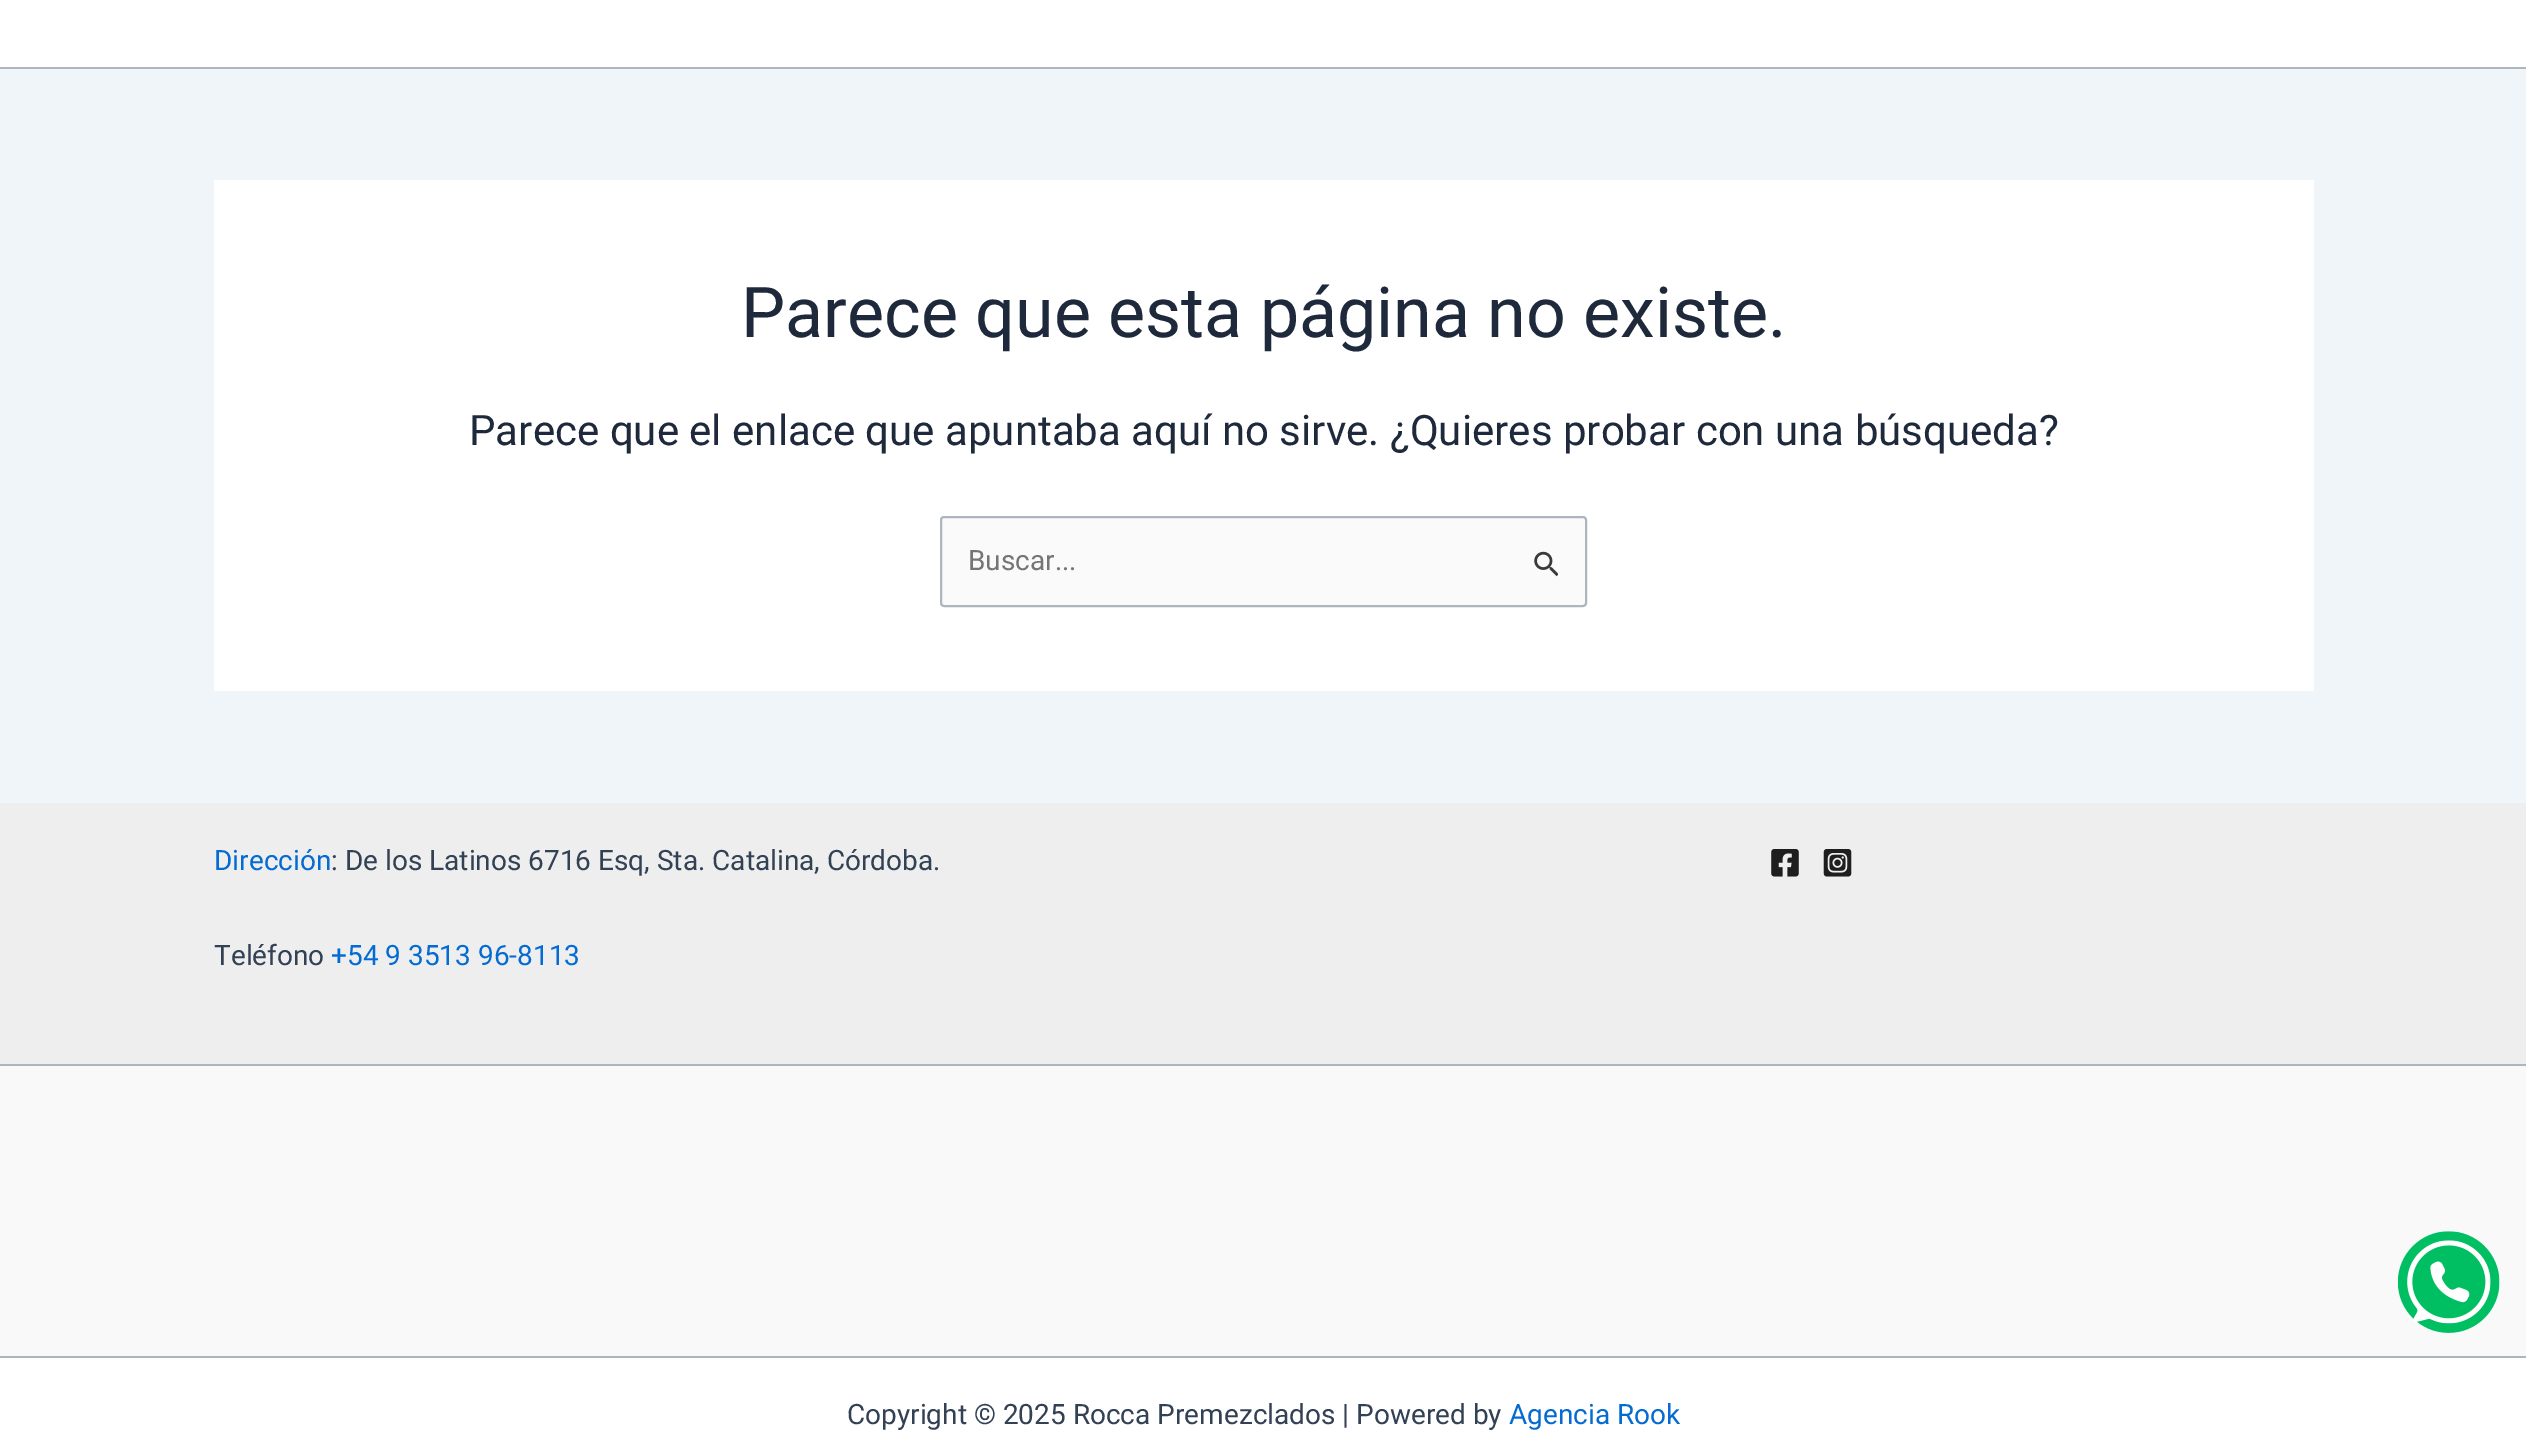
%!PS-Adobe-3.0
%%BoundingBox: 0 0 2526 1456
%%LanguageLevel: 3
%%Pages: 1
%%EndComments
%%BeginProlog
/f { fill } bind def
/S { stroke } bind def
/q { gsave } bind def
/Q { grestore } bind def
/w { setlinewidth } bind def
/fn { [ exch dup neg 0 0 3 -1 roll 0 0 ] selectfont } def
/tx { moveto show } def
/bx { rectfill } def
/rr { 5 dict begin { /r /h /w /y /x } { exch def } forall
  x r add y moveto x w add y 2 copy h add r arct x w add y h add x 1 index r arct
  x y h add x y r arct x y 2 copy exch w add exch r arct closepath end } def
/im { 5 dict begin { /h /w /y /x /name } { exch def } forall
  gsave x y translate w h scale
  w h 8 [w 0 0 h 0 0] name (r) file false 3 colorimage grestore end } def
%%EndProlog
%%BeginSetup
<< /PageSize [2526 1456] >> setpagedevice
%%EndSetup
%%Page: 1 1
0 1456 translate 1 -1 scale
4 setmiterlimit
0.941 0.961 0.98 setrgbcolor
0 0 2526 1456 bx
1 setgray
0 0 2526 67 bx
0.678 0.714 0.745 setrgbcolor
0 67 2526 2 bx
1 setgray
214 180 2100 511 bx
/Roboto-Regular 70 fn
0.118 0.161 0.231 setrgbcolor
(Parece que esta página no existe.) 741 337 tx
/Roboto-Regular 42 fn
(Parece que el enlace que apuntaba aquí no sirve. ¿Quieres probar con una búsqueda?) 469 445 tx
0.98 setgray
941 517 645 89 3 rr q f Q
0.678 0.714 0.745 setrgbcolor
2 w
S
/Roboto-Regular 28 fn
0.459 setgray
(Buscar...) 968 570 tx
(image0.raw) 1534 551 24 26 im
0.933 setgray
0 803 2526 261 bx
0.016 0.42 0.824 setrgbcolor
(Dirección) 214 870 tx
0.2 0.255 0.333 setrgbcolor
(: De los Latinos 6716 Esq, Sta. Catalina, Córdoba.) 331 870 tx
(Teléfono) 214 965 tx
0.016 0.42 0.824 setrgbcolor
(+54 9 3513 96-8113) 331 965 tx
(image1.raw) 1771 849 28 28 im
(image2.raw) 1823 849 29 28 im
0.976 setgray
0 1066 2526 290 bx
0.678 0.714 0.745 setrgbcolor
0 1064 2526 2 bx
(image3.raw) 2398 1231 102 102 im
1 setgray
0 1358 2526 98 bx
0.678 0.714 0.745 setrgbcolor
0 1356 2526 2 bx
0.2 0.255 0.333 setrgbcolor
(Copyright © 2025 Rocca Premezclados | Powered by) 847 1424 tx
0.016 0.42 0.824 setrgbcolor
(Agencia Rook) 1509 1424 tx
showpage
%%EOF
